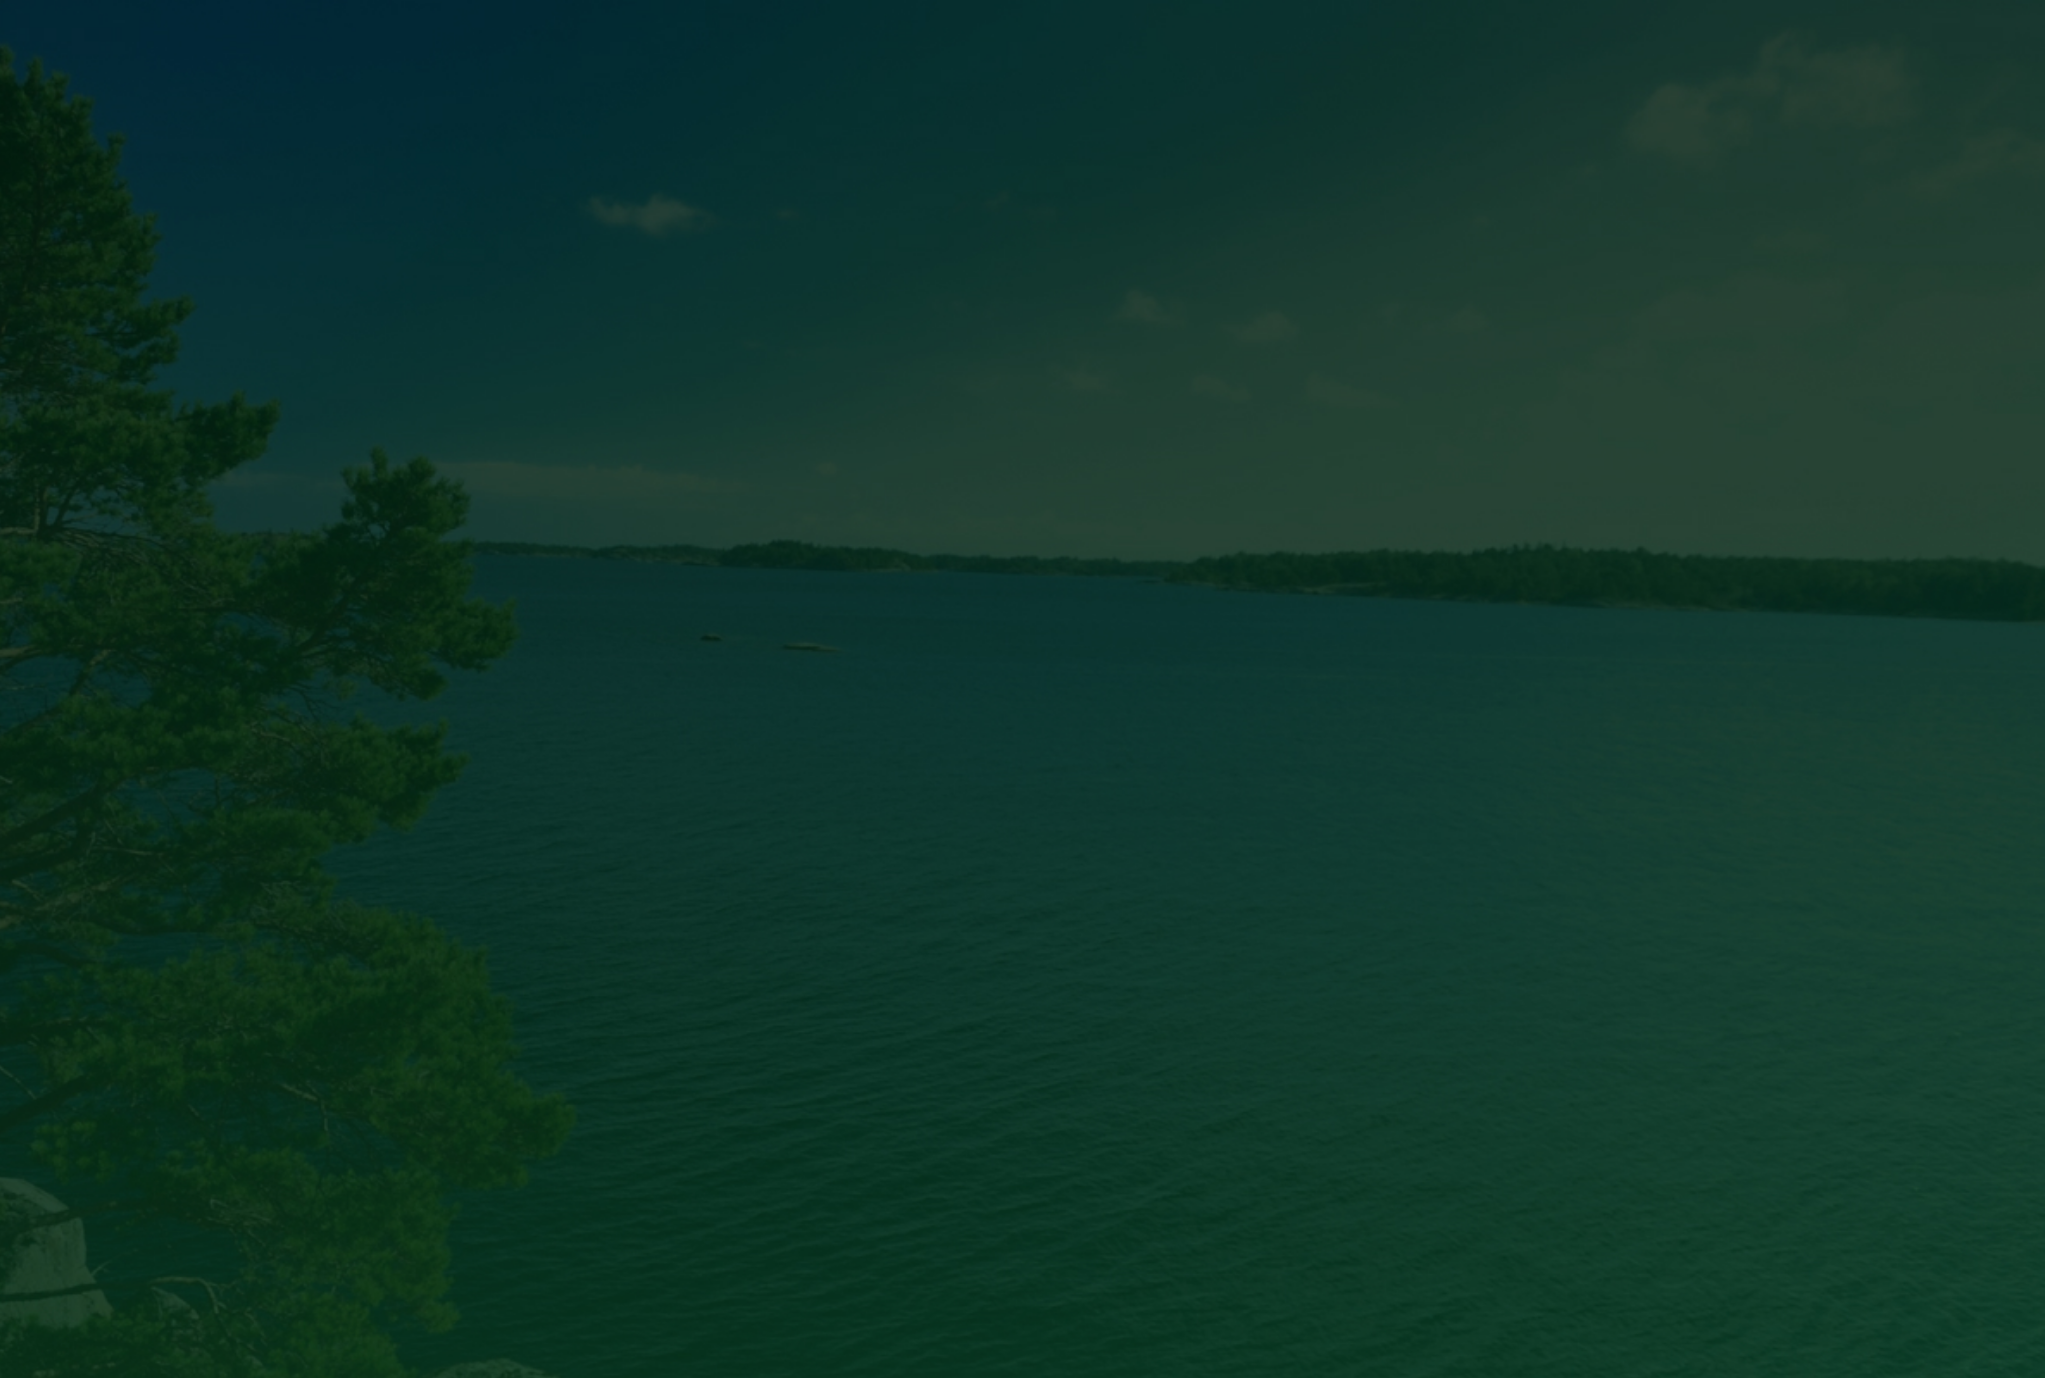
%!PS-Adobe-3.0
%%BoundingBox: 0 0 2045 1378
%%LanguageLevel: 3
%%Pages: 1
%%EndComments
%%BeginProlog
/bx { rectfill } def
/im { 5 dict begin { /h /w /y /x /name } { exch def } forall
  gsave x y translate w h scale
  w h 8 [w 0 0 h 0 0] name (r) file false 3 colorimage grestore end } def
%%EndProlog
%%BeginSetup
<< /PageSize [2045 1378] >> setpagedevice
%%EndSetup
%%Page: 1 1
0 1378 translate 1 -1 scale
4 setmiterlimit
1 setgray
0 0 2045 1378 bx
(image0.raw) 0 0 2045 1378 im
showpage
%%EOF
